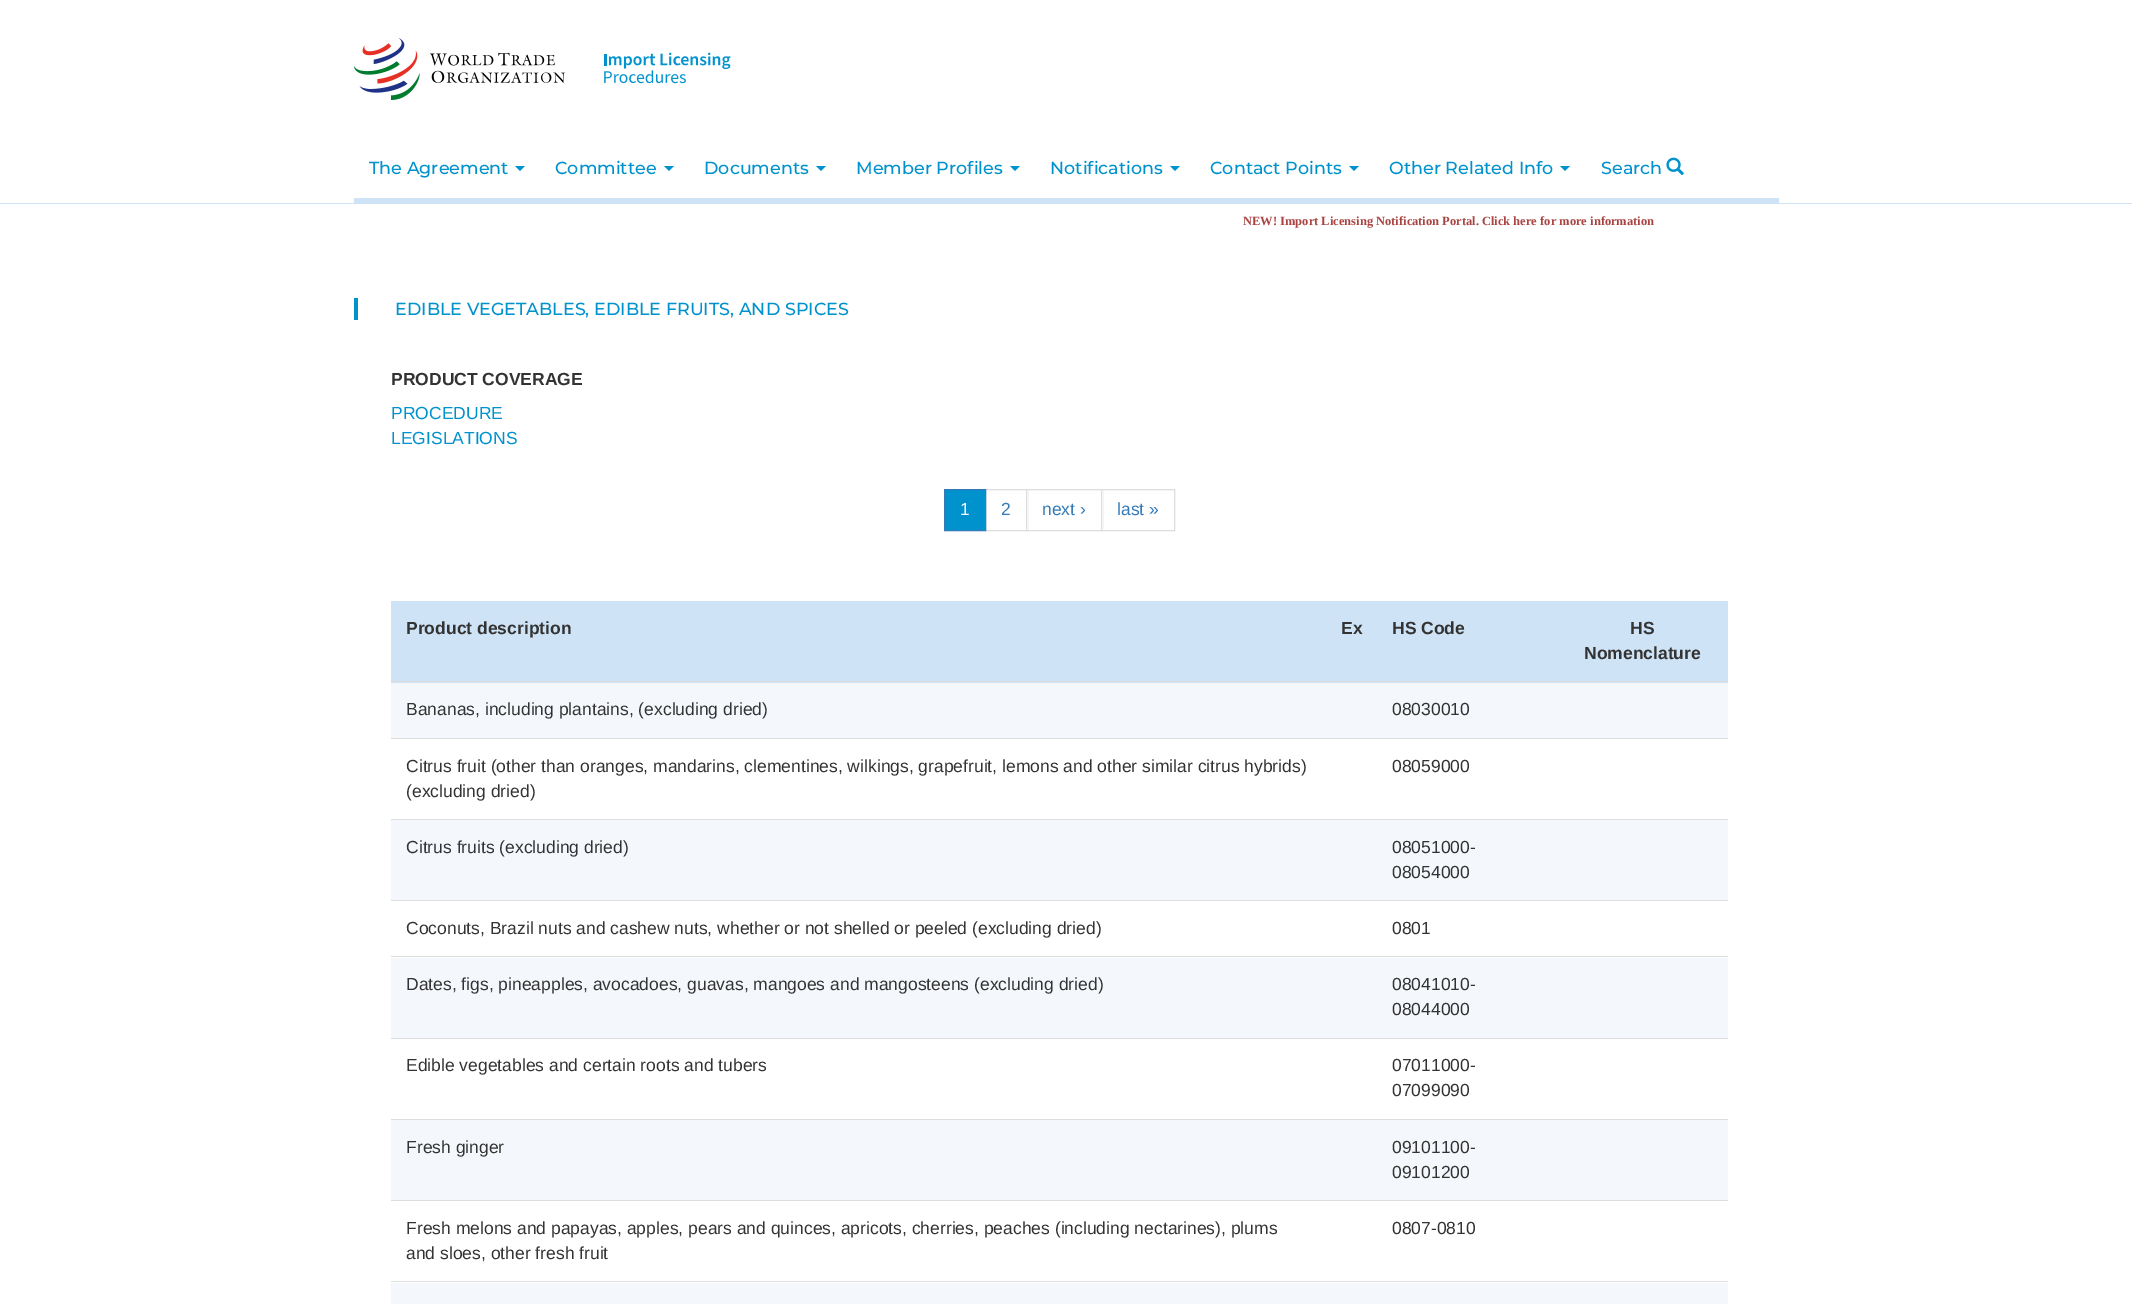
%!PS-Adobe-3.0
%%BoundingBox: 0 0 2132 1304
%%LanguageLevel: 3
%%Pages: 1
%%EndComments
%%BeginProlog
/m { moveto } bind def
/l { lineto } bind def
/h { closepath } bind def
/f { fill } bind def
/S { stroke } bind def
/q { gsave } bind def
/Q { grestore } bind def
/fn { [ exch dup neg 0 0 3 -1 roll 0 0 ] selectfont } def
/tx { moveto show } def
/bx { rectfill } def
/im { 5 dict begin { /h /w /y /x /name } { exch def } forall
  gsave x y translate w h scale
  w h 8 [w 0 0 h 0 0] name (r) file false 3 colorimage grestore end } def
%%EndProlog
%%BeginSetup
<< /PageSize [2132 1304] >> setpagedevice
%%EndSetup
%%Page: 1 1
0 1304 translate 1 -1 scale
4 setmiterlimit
1 setgray
0 0 2132 1304 bx
(image0.raw) 354 38 211 62 im
(image1.raw) 604 52 127 32 im
0.808 0.89 0.961 setrgbcolor
0 203 2132 1 bx
354 198 1425 5 bx
/Montserrat-Medium 17.5 fn
0 0.573 0.804 setrgbcolor
(The Agreement) 369 174 tx
515 166 m 525 166 l 520 171 l h f
(Committee) 555 174 tx
664 166 m 674 166 l 669 171 l h f
(Documents) 704 174 tx
816 166 m 826 166 l 821 171 l h f
(Member Profiles) 856 174 tx
1010 166 m 1020 166 l 1015 171 l h f
(Notifications) 1050 174 tx
1170 166 m 1180 166 l 1175 171 l h f
(Contact Points) 1210 174 tx
1349 166 m 1359 166 l 1354 171 l h f
(Other Related Info) 1389 174 tx
1560 166 m 1570 166 l 1565 171 l h f
(Search) 1601 174 tx
(image2.raw) 1666 157 18 18 im
/LiberationSerif-Bold 12.5 fn
0.663 0.267 0.259 setrgbcolor
(NEW! Import Licensing Notification Portal. Click here for more information) 1243 225 tx
0 0.573 0.804 setrgbcolor
354 298 4 22 bx
/Montserrat-Medium 17.5 fn
(EDIBLE VEGETABLES, EDIBLE FRUITS, AND SPICES) 395 315 tx
/LiberationSans-Bold 17.5 fn
0.2 setgray
(PRODUCT COVERAGE) 391 385 tx
/LiberationSans-Regular 17.5 fn
0 0.573 0.804 setrgbcolor
(PROCEDURE) 391 419 tx
(LEGISLATIONS) 391 444 tx
0.867 setgray
985.5 489.5 42 41 rectstroke
0 0.573 0.804 setrgbcolor
944.5 489.5 m 985.5 489.5 l 985.5 530.5 l 944.5 530.5 l h q f Q
0.2 0.478 0.718 setrgbcolor
S
1 setgray
(1) 960 515 tx
0.2 0.478 0.718 setrgbcolor
(2) 1001 515 tx
1 setgray
1027 490 1 40 bx
0.867 setgray
1026.5 489.5 76 41 rectstroke
0.2 0.478 0.718 setrgbcolor
(next ›) 1042 515 tx
1 setgray
1102 490 1 40 bx
0.867 setgray
1101.5 489.5 73 41 rectstroke
0.2 0.478 0.718 setrgbcolor
(last ») 1117 515 tx
0.808 0.89 0.961 setrgbcolor
391 601 1337 82 bx
/LiberationSans-Bold 17.5 fn
0.2 setgray
(Product description) 406 634 tx
(Ex) 1341 634 tx
(HS Code) 1392 634 tx
(HS) 1630 634 tx
(Nomenclature) 1584 659 tx
0.957 0.969 0.984 setrgbcolor
391 683 1337 55 bx
0.867 setgray
391 681 1337 1 bx
/LiberationSans-Regular 17.5 fn
0.2 setgray
(Bananas, including plantains, \(excluding dried\)) 406 715 tx
(08030010) 1392 715 tx
0.867 setgray
391 738 1337 1 bx
0.2 setgray
(Citrus fruit \(other than oranges, mandarins, clementines, wilkings, grapefruit, lemons and other similar citrus hybrids\)) 406 772 tx
(\(excluding dried\)) 406 797 tx
(08059000) 1392 772 tx
0.957 0.969 0.984 setrgbcolor
391 820 1337 80 bx
0.867 setgray
391 819 1337 1 bx
0.2 setgray
(Citrus fruits \(excluding dried\)) 406 853 tx
(08051000-) 1392 853 tx
(08054000) 1392 878 tx
0.867 setgray
391 900 1337 1 bx
0.2 setgray
(Coconuts, Brazil nuts and cashew nuts, whether or not shelled or peeled \(excluding dried\)) 406 934 tx
(0801) 1392 934 tx
0.957 0.969 0.984 setrgbcolor
391 958 1337 80 bx
0.867 setgray
391 956 1337 1 bx
0.2 setgray
(Dates, figs, pineapples, avocadoes, guavas, mangoes and mangosteens \(excluding dried\)) 406 990 tx
(08041010-) 1392 990 tx
(08044000) 1392 1015 tx
0.867 setgray
391 1038 1337 1 bx
0.2 setgray
(Edible vegetables and certain roots and tubers) 406 1071 tx
(07011000-) 1392 1071 tx
(07099090) 1392 1096 tx
0.957 0.969 0.984 setrgbcolor
391 1120 1337 80 bx
0.867 setgray
391 1119 1337 1 bx
0.2 setgray
(Fresh ginger) 406 1153 tx
(09101100-) 1392 1153 tx
(09101200) 1392 1178 tx
0.867 setgray
391 1200 1337 1 bx
0.2 setgray
(Fresh melons and papayas, apples, pears and quinces, apricots, cherries, peaches \(including nectarines\), plums) 406 1234 tx
(and sloes, other fresh fruit) 406 1259 tx
(0807-0810) 1392 1234 tx
0.957 0.969 0.984 setrgbcolor
391 1283 1337 21 bx
0.867 setgray
391 1281 1337 1 bx
showpage
%%EOF
